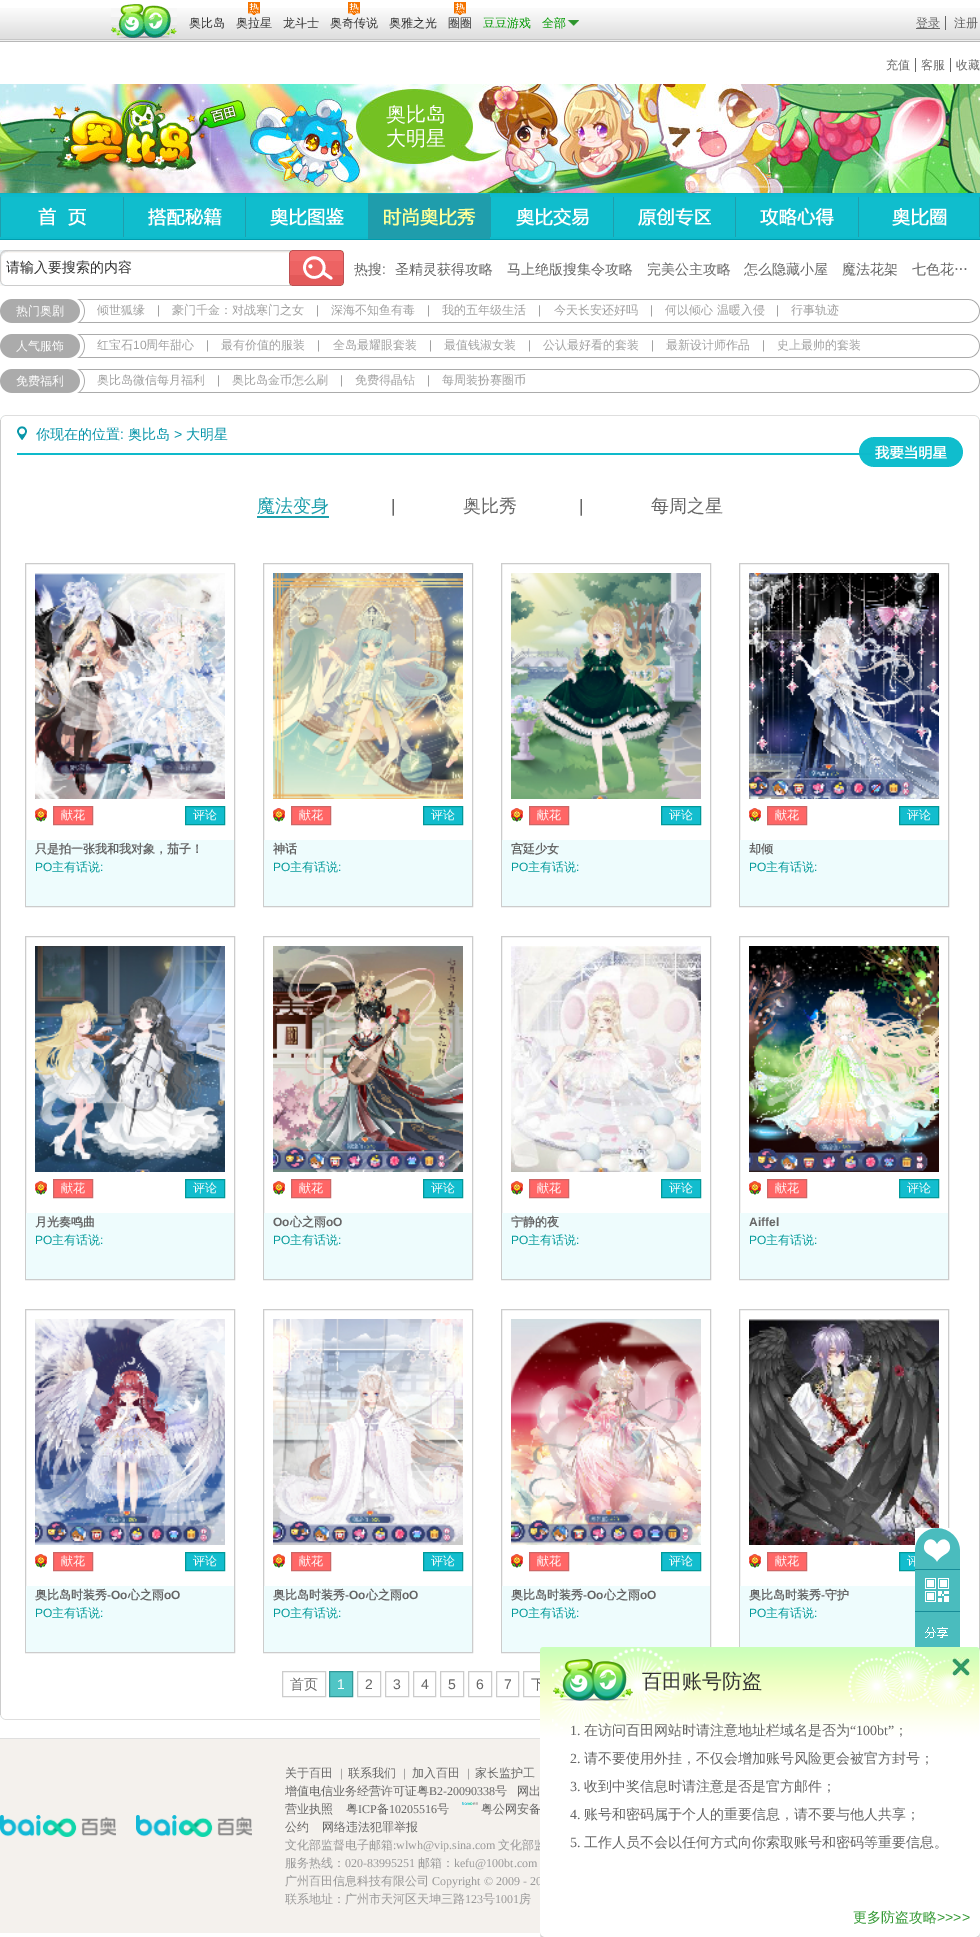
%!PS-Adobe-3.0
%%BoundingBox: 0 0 980 1937
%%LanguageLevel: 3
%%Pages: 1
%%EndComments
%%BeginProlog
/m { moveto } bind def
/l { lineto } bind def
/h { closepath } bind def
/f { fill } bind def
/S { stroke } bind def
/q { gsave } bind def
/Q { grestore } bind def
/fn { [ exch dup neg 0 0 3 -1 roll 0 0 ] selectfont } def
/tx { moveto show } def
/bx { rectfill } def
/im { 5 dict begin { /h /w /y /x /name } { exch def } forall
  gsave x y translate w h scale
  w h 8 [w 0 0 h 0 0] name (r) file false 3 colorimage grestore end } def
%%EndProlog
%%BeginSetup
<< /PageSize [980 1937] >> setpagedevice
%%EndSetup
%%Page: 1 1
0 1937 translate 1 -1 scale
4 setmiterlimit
1 setgray
0 0 980 1937 bx
(image0.raw) 0 8 980 34 im
(image1.raw) 111 4 66 34 im
/WenQuanYiZenHei-Medium 12 fn
0.2 setgray
(奥比岛) 189 27 tx
(image2.raw) 248 2 12 13 im
(奥拉星) 236 27 tx
(龙斗士) 283 27 tx
(image2.raw) 348 2 12 13 im
(奥奇传说) 330 27 tx
(奥雅之光) 389 27 tx
(image2.raw) 454 2 12 13 im
(圈圈) 448 27 tx
0 0.6 0 setrgbcolor
(豆豆游戏) 483 27 tx
(全部) 542 27 tx
(image3.raw) 567 20 12 6 im
0.4 setgray
916 28 24 1 bx
(登录) 916 27 tx
945 16 1 14 bx
(注册) 954 27 tx
(充值) 886 69 tx
915 58 1 14 bx
(客服) 921 69 tx
950 58 1 14 bx
(收藏) 956 69 tx
(image4.raw) 0 84 980 109 im
/WenQuanYiZenHei-Medium 20 fn
1 setgray
(奥比岛) 386 121 tx
(大明星) 386 145 tx
0.055 0.729 0.796 setrgbcolor
0 194 980 45 bx
0.055 0.706 0.773 setrgbcolor
0 193 980 1 bx
0 0.616 0.678 setrgbcolor
0 239 980 1 bx
(image5.raw) 0 197 980 40 im
(image6.raw) 368 194 122 45 im
(image7.raw) 0 250 289 36 im
/WenQuanYiZenHei-Medium 14 fn
0.2 setgray
(请输入要搜索的内容) 6 272 tx
(image8.raw) 289 250 55 36 im
0.4 setgray
(热搜) 354 274 tx
/LiberationSans-Regular 14 fn
(:) 382 274 tx
/WenQuanYiZenHei-Medium 14 fn
(圣精灵获得攻略) 395 274 tx
(马上绝版搜集令攻略) 507 274 tx
(完美公主攻略) 647 274 tx
(怎么隐藏小屋) 744 274 tx
(魔法花架) 842 274 tx
(七色花…) 912 274 tx
0.671 setgray
85 299 884 1 bx
85 322 884 1 bx
(image9.raw) 0 299 85 24 im
/WenQuanYiZenHei-Medium 12 fn
1 setgray
(热门奥剧) 16 315 tx
0.631 setgray
(倾世狐缘) 97 314 tx
/LiberationSans-Regular 12 fn
(|) 157 314 tx
/WenQuanYiZenHei-Medium 12 fn
(豪门千金：对战寒门之女) 172 314 tx
/LiberationSans-Regular 12 fn
(|) 316 314 tx
/WenQuanYiZenHei-Medium 12 fn
(深海不知鱼有毒) 331 314 tx
/LiberationSans-Regular 12 fn
(|) 427 314 tx
/WenQuanYiZenHei-Medium 12 fn
(我的五年级生活) 442 314 tx
/LiberationSans-Regular 12 fn
(|) 538 314 tx
/WenQuanYiZenHei-Medium 12 fn
(今天长安还好吗) 554 314 tx
/LiberationSans-Regular 12 fn
(|) 650 314 tx
/WenQuanYiZenHei-Medium 12 fn
(何以倾心 温暖入侵) 665 314 tx
/LiberationSans-Regular 12 fn
(|) 776 314 tx
/WenQuanYiZenHei-Medium 12 fn
(行事轨迹) 791 314 tx
(image10.raw) 969 299 11 24 im
0.671 setgray
85 334 884 1 bx
85 357 884 1 bx
(image9.raw) 0 334 85 24 im
1 setgray
(人气服饰) 16 350 tx
0.631 setgray
(红宝石) 97 349 tx
/LiberationSans-Regular 12 fn
(10) 133 349 tx
/WenQuanYiZenHei-Medium 12 fn
(周年甜心) 146 349 tx
/LiberationSans-Regular 12 fn
(|) 206 349 tx
/WenQuanYiZenHei-Medium 12 fn
(最有价值的服装) 221 349 tx
/LiberationSans-Regular 12 fn
(|) 317 349 tx
/WenQuanYiZenHei-Medium 12 fn
(全岛最耀眼套装) 333 349 tx
/LiberationSans-Regular 12 fn
(|) 429 349 tx
/WenQuanYiZenHei-Medium 12 fn
(最值钱淑女装) 444 349 tx
/LiberationSans-Regular 12 fn
(|) 528 349 tx
/WenQuanYiZenHei-Medium 12 fn
(公认最好看的套装) 543 349 tx
/LiberationSans-Regular 12 fn
(|) 651 349 tx
/WenQuanYiZenHei-Medium 12 fn
(最新设计师作品) 666 349 tx
/LiberationSans-Regular 12 fn
(|) 762 349 tx
/WenQuanYiZenHei-Medium 12 fn
(史上最帅的套装) 777 349 tx
(image10.raw) 969 334 11 24 im
0.671 setgray
85 369 884 1 bx
85 392 884 1 bx
(image9.raw) 0 369 85 24 im
1 setgray
(免费福利) 16 385 tx
0.631 setgray
(奥比岛微信每月福利) 97 384 tx
/LiberationSans-Regular 12 fn
(|) 217 384 tx
/WenQuanYiZenHei-Medium 12 fn
(奥比岛金币怎么刷) 232 384 tx
/LiberationSans-Regular 12 fn
(|) 340 384 tx
/WenQuanYiZenHei-Medium 12 fn
(免费得晶钻) 355 384 tx
/LiberationSans-Regular 12 fn
(|) 427 384 tx
/WenQuanYiZenHei-Medium 12 fn
(每周装扮赛圈币) 442 384 tx
(image10.raw) 969 369 11 24 im
(image11.raw) 0 415 980 5 im
0.8 setgray
979 420 1 1232 bx
0 420 1 1295 bx
(image12.raw) 17 426 10 14 im
/WenQuanYiZenHei-Medium 14 fn
0.02 0.58 0.663 setrgbcolor
(你现在的位置) 36 439 tx
/LiberationSans-Regular 14 fn
(:) 120 439 tx
/WenQuanYiZenHei-Medium 14 fn
(奥比岛) 128 439 tx
/LiberationSans-Regular 14 fn
(>) 174 439 tx
/WenQuanYiZenHei-Medium 14 fn
(大明星) 186 439 tx
(image13.raw) 859 437 104 30 im
0.055 0.729 0.796 setrgbcolor
17 453 855 2 bx
/WenQuanYiZenHei-Medium 18 fn
0.118 0.624 0.675 setrgbcolor
(魔法变身) 257 512 tx
257 516 72 2 bx
/LiberationSans-Regular 18 fn
0.4 setgray
(|) 391 512 tx
/WenQuanYiZenHei-Medium 18 fn
(奥比秀) 463 512 tx
/LiberationSans-Regular 18 fn
(|) 579 512 tx
/WenQuanYiZenHei-Medium 18 fn
(每周之星) 651 512 tx
0.8 setgray
25.5 563.5 209 343 rectstroke
(image14.raw) 35 573 190 226 im
(image15.raw) 35 808 12 14 im
1 0.4 0.4 setrgbcolor
53.5 806.5 m 92.5 806.5 l 92.5 824.5 l 53.5 824.5 l h q f Q
0.8 0.4 0.4 setrgbcolor
S
/WenQuanYiZenHei-Medium 12 fn
1 setgray
(献花) 61 819 tx
0.071 0.741 0.808 setrgbcolor
185.5 806.5 m 224.5 806.5 l 224.5 824.5 l 185.5 824.5 l h q f Q
0 0.6 0.6 setrgbcolor
S
1 setgray
(评论) 193 819 tx
0.933 0.988 0.992 setrgbcolor
26 840 208 66 bx
/WenQuanYiZenHei-Bold 12 fn
0.4 setgray
(只是拍一张我和我对象，茄子！) 35 853 tx
/LiberationSans-Regular 12 fn
0 0.6 0.6 setrgbcolor
(PO) 35 871 tx
/WenQuanYiZenHei-Medium 12 fn
(主有话说) 52 871 tx
/LiberationSans-Regular 12 fn
(:) 100 871 tx
0.8 setgray
263.5 563.5 209 343 rectstroke
(image16.raw) 273 573 190 226 im
(image15.raw) 273 808 12 14 im
1 0.4 0.4 setrgbcolor
291.5 806.5 m 330.5 806.5 l 330.5 824.5 l 291.5 824.5 l h q f Q
0.8 0.4 0.4 setrgbcolor
S
/WenQuanYiZenHei-Medium 12 fn
1 setgray
(献花) 299 819 tx
0.071 0.741 0.808 setrgbcolor
423.5 806.5 m 462.5 806.5 l 462.5 824.5 l 423.5 824.5 l h q f Q
0 0.6 0.6 setrgbcolor
S
1 setgray
(评论) 431 819 tx
0.933 0.988 0.992 setrgbcolor
264 840 208 66 bx
/WenQuanYiZenHei-Bold 12 fn
0.4 setgray
(神话) 273 853 tx
/LiberationSans-Regular 12 fn
0 0.6 0.6 setrgbcolor
(PO) 273 871 tx
/WenQuanYiZenHei-Medium 12 fn
(主有话说) 290 871 tx
/LiberationSans-Regular 12 fn
(:) 338 871 tx
0.8 setgray
501.5 563.5 209 343 rectstroke
(image17.raw) 511 573 190 226 im
(image15.raw) 511 808 12 14 im
1 0.4 0.4 setrgbcolor
529.5 806.5 m 568.5 806.5 l 568.5 824.5 l 529.5 824.5 l h q f Q
0.8 0.4 0.4 setrgbcolor
S
/WenQuanYiZenHei-Medium 12 fn
1 setgray
(献花) 537 819 tx
0.071 0.741 0.808 setrgbcolor
661.5 806.5 m 700.5 806.5 l 700.5 824.5 l 661.5 824.5 l h q f Q
0 0.6 0.6 setrgbcolor
S
1 setgray
(评论) 669 819 tx
0.933 0.988 0.992 setrgbcolor
502 840 208 66 bx
/WenQuanYiZenHei-Bold 12 fn
0.4 setgray
(宫廷少女) 511 853 tx
/LiberationSans-Regular 12 fn
0 0.6 0.6 setrgbcolor
(PO) 511 871 tx
/WenQuanYiZenHei-Medium 12 fn
(主有话说) 528 871 tx
/LiberationSans-Regular 12 fn
(:) 576 871 tx
0.8 setgray
739.5 563.5 209 343 rectstroke
(image18.raw) 749 573 190 226 im
(image15.raw) 749 808 12 14 im
1 0.4 0.4 setrgbcolor
767.5 806.5 m 806.5 806.5 l 806.5 824.5 l 767.5 824.5 l h q f Q
0.8 0.4 0.4 setrgbcolor
S
/WenQuanYiZenHei-Medium 12 fn
1 setgray
(献花) 775 819 tx
0.071 0.741 0.808 setrgbcolor
899.5 806.5 m 938.5 806.5 l 938.5 824.5 l 899.5 824.5 l h q f Q
0 0.6 0.6 setrgbcolor
S
1 setgray
(评论) 907 819 tx
0.933 0.988 0.992 setrgbcolor
740 840 208 66 bx
/WenQuanYiZenHei-Bold 12 fn
0.4 setgray
(却倾) 749 853 tx
/LiberationSans-Regular 12 fn
0 0.6 0.6 setrgbcolor
(PO) 749 871 tx
/WenQuanYiZenHei-Medium 12 fn
(主有话说) 766 871 tx
/LiberationSans-Regular 12 fn
(:) 814 871 tx
0.8 setgray
25.5 936.5 209 343 rectstroke
(image19.raw) 35 946 190 226 im
(image15.raw) 35 1181 12 14 im
1 0.4 0.4 setrgbcolor
53.5 1179.5 m 92.5 1179.5 l 92.5 1197.5 l 53.5 1197.5 l h q f Q
0.8 0.4 0.4 setrgbcolor
S
/WenQuanYiZenHei-Medium 12 fn
1 setgray
(献花) 61 1192 tx
0.071 0.741 0.808 setrgbcolor
185.5 1179.5 m 224.5 1179.5 l 224.5 1197.5 l 185.5 1197.5 l h q f Q
0 0.6 0.6 setrgbcolor
S
1 setgray
(评论) 193 1192 tx
0.933 0.988 0.992 setrgbcolor
26 1213 208 66 bx
/WenQuanYiZenHei-Bold 12 fn
0.4 setgray
(月光奏鸣曲) 35 1226 tx
/LiberationSans-Regular 12 fn
0 0.6 0.6 setrgbcolor
(PO) 35 1244 tx
/WenQuanYiZenHei-Medium 12 fn
(主有话说) 52 1244 tx
/LiberationSans-Regular 12 fn
(:) 100 1244 tx
0.8 setgray
263.5 936.5 209 343 rectstroke
(image20.raw) 273 946 190 226 im
(image15.raw) 273 1181 12 14 im
1 0.4 0.4 setrgbcolor
291.5 1179.5 m 330.5 1179.5 l 330.5 1197.5 l 291.5 1197.5 l h q f Q
0.8 0.4 0.4 setrgbcolor
S
/WenQuanYiZenHei-Medium 12 fn
1 setgray
(献花) 299 1192 tx
0.071 0.741 0.808 setrgbcolor
423.5 1179.5 m 462.5 1179.5 l 462.5 1197.5 l 423.5 1197.5 l h q f Q
0 0.6 0.6 setrgbcolor
S
1 setgray
(评论) 431 1192 tx
0.933 0.988 0.992 setrgbcolor
264 1213 208 66 bx
/LiberationSans-Bold 12 fn
0.4 setgray
(Oo) 273 1226 tx
/WenQuanYiZenHei-Bold 12 fn
(心之雨) 290 1226 tx
/LiberationSans-Bold 12 fn
(oO) 326 1226 tx
/LiberationSans-Regular 12 fn
0 0.6 0.6 setrgbcolor
(PO) 273 1244 tx
/WenQuanYiZenHei-Medium 12 fn
(主有话说) 290 1244 tx
/LiberationSans-Regular 12 fn
(:) 338 1244 tx
0.8 setgray
501.5 936.5 209 343 rectstroke
(image21.raw) 511 946 190 226 im
(image15.raw) 511 1181 12 14 im
1 0.4 0.4 setrgbcolor
529.5 1179.5 m 568.5 1179.5 l 568.5 1197.5 l 529.5 1197.5 l h q f Q
0.8 0.4 0.4 setrgbcolor
S
/WenQuanYiZenHei-Medium 12 fn
1 setgray
(献花) 537 1192 tx
0.071 0.741 0.808 setrgbcolor
661.5 1179.5 m 700.5 1179.5 l 700.5 1197.5 l 661.5 1197.5 l h q f Q
0 0.6 0.6 setrgbcolor
S
1 setgray
(评论) 669 1192 tx
0.933 0.988 0.992 setrgbcolor
502 1213 208 66 bx
/WenQuanYiZenHei-Bold 12 fn
0.4 setgray
(宁静的夜) 511 1226 tx
/LiberationSans-Regular 12 fn
0 0.6 0.6 setrgbcolor
(PO) 511 1244 tx
/WenQuanYiZenHei-Medium 12 fn
(主有话说) 528 1244 tx
/LiberationSans-Regular 12 fn
(:) 576 1244 tx
0.8 setgray
739.5 936.5 209 343 rectstroke
(image22.raw) 749 946 190 226 im
(image15.raw) 749 1181 12 14 im
1 0.4 0.4 setrgbcolor
767.5 1179.5 m 806.5 1179.5 l 806.5 1197.5 l 767.5 1197.5 l h q f Q
0.8 0.4 0.4 setrgbcolor
S
/WenQuanYiZenHei-Medium 12 fn
1 setgray
(献花) 775 1192 tx
0.071 0.741 0.808 setrgbcolor
899.5 1179.5 m 938.5 1179.5 l 938.5 1197.5 l 899.5 1197.5 l h q f Q
0 0.6 0.6 setrgbcolor
S
1 setgray
(评论) 907 1192 tx
0.933 0.988 0.992 setrgbcolor
740 1213 208 66 bx
/LiberationSans-Bold 12 fn
0.4 setgray
(Aiffel) 749 1226 tx
/LiberationSans-Regular 12 fn
0 0.6 0.6 setrgbcolor
(PO) 749 1244 tx
/WenQuanYiZenHei-Medium 12 fn
(主有话说) 766 1244 tx
/LiberationSans-Regular 12 fn
(:) 814 1244 tx
0.8 setgray
25.5 1309.5 209 343 rectstroke
(image23.raw) 35 1319 190 226 im
(image15.raw) 35 1554 12 14 im
1 0.4 0.4 setrgbcolor
53.5 1552.5 m 92.5 1552.5 l 92.5 1570.5 l 53.5 1570.5 l h q f Q
0.8 0.4 0.4 setrgbcolor
S
/WenQuanYiZenHei-Medium 12 fn
1 setgray
(献花) 61 1565 tx
0.071 0.741 0.808 setrgbcolor
185.5 1552.5 m 224.5 1552.5 l 224.5 1570.5 l 185.5 1570.5 l h q f Q
0 0.6 0.6 setrgbcolor
S
1 setgray
(评论) 193 1565 tx
0.933 0.988 0.992 setrgbcolor
26 1586 208 66 bx
/WenQuanYiZenHei-Bold 12 fn
0.4 setgray
(奥比岛时装秀) 35 1599 tx
/LiberationSans-Bold 12 fn
(-Oo) 107 1599 tx
/WenQuanYiZenHei-Bold 12 fn
(心之雨) 128 1599 tx
/LiberationSans-Bold 12 fn
(oO) 164 1599 tx
/LiberationSans-Regular 12 fn
0 0.6 0.6 setrgbcolor
(PO) 35 1617 tx
/WenQuanYiZenHei-Medium 12 fn
(主有话说) 52 1617 tx
/LiberationSans-Regular 12 fn
(:) 100 1617 tx
0.8 setgray
263.5 1309.5 209 343 rectstroke
(image24.raw) 273 1319 190 226 im
(image15.raw) 273 1554 12 14 im
1 0.4 0.4 setrgbcolor
291.5 1552.5 m 330.5 1552.5 l 330.5 1570.5 l 291.5 1570.5 l h q f Q
0.8 0.4 0.4 setrgbcolor
S
/WenQuanYiZenHei-Medium 12 fn
1 setgray
(献花) 299 1565 tx
0.071 0.741 0.808 setrgbcolor
423.5 1552.5 m 462.5 1552.5 l 462.5 1570.5 l 423.5 1570.5 l h q f Q
0 0.6 0.6 setrgbcolor
S
1 setgray
(评论) 431 1565 tx
0.933 0.988 0.992 setrgbcolor
264 1586 208 66 bx
/WenQuanYiZenHei-Bold 12 fn
0.4 setgray
(奥比岛时装秀) 273 1599 tx
/LiberationSans-Bold 12 fn
(-Oo) 345 1599 tx
/WenQuanYiZenHei-Bold 12 fn
(心之雨) 366 1599 tx
/LiberationSans-Bold 12 fn
(oO) 402 1599 tx
/LiberationSans-Regular 12 fn
0 0.6 0.6 setrgbcolor
(PO) 273 1617 tx
/WenQuanYiZenHei-Medium 12 fn
(主有话说) 290 1617 tx
/LiberationSans-Regular 12 fn
(:) 338 1617 tx
0.8 setgray
501.5 1309.5 209 343 rectstroke
(image25.raw) 511 1319 190 226 im
(image15.raw) 511 1554 12 14 im
1 0.4 0.4 setrgbcolor
529.5 1552.5 m 568.5 1552.5 l 568.5 1570.5 l 529.5 1570.5 l h q f Q
0.8 0.4 0.4 setrgbcolor
S
/WenQuanYiZenHei-Medium 12 fn
1 setgray
(献花) 537 1565 tx
0.071 0.741 0.808 setrgbcolor
661.5 1552.5 m 700.5 1552.5 l 700.5 1570.5 l 661.5 1570.5 l h q f Q
0 0.6 0.6 setrgbcolor
S
1 setgray
(评论) 669 1565 tx
0.933 0.988 0.992 setrgbcolor
502 1586 208 66 bx
/WenQuanYiZenHei-Bold 12 fn
0.4 setgray
(奥比岛时装秀) 511 1599 tx
/LiberationSans-Bold 12 fn
(-Oo) 583 1599 tx
/WenQuanYiZenHei-Bold 12 fn
(心之雨) 604 1599 tx
/LiberationSans-Bold 12 fn
(oO) 640 1599 tx
/LiberationSans-Regular 12 fn
0 0.6 0.6 setrgbcolor
(PO) 511 1617 tx
/WenQuanYiZenHei-Medium 12 fn
(主有话说) 528 1617 tx
/LiberationSans-Regular 12 fn
(:) 576 1617 tx
0.8 setgray
739.5 1309.5 209 343 rectstroke
(image26.raw) 749 1319 190 226 im
(image15.raw) 749 1554 12 14 im
1 0.4 0.4 setrgbcolor
767.5 1552.5 m 806.5 1552.5 l 806.5 1570.5 l 767.5 1570.5 l h q f Q
0.8 0.4 0.4 setrgbcolor
S
/WenQuanYiZenHei-Medium 12 fn
1 setgray
(献花) 775 1565 tx
0.071 0.741 0.808 setrgbcolor
900 1553 15 17 bx
0 0.6 0.6 setrgbcolor
899.5 1552.5 39 18 rectstroke
1 setgray
(评) 907 1565 tx
0.933 0.988 0.992 setrgbcolor
740 1586 175 61 bx
/WenQuanYiZenHei-Bold 12 fn
0.4 setgray
(奥比岛时装秀) 749 1599 tx
/LiberationSans-Bold 12 fn
(-) 821 1599 tx
/WenQuanYiZenHei-Bold 12 fn
(守护) 825 1599 tx
/LiberationSans-Regular 12 fn
0 0.6 0.6 setrgbcolor
(PO) 749 1617 tx
/WenQuanYiZenHei-Medium 12 fn
(主有话说) 766 1617 tx
/LiberationSans-Regular 12 fn
(:) 814 1617 tx
0.8 setgray
282.5 1671.5 43 25 rectstroke
/WenQuanYiZenHei-Medium 14 fn
0.4 setgray
(首页) 290 1689 tx
0.314 0.773 0.773 setrgbcolor
329.5 1671.5 m 352.5 1671.5 l 352.5 1696.5 l 329.5 1696.5 l h q f Q
0.2 0.6 0.6 setrgbcolor
S
/LiberationSans-Regular 14 fn
1 setgray
(1) 337 1689 tx
0.8 setgray
357.5 1671.5 23 25 rectstroke
0.4 setgray
(2) 365 1689 tx
0.8 setgray
385.5 1671.5 23 25 rectstroke
0.4 setgray
(3) 393 1689 tx
0.8 setgray
413.5 1671.5 22 25 rectstroke
0.4 setgray
(4) 421 1689 tx
0.8 setgray
440.5 1671.5 23 25 rectstroke
0.4 setgray
(5) 448 1689 tx
0.8 setgray
468.5 1671.5 23 25 rectstroke
0.4 setgray
(6) 476 1689 tx
0.8 setgray
496.5 1671.5 22 25 rectstroke
0.4 setgray
(7) 504 1689 tx
0.8 setgray
523.5 1671.5 57 25 rectstroke
/WenQuanYiZenHei-Medium 14 fn
0.4 setgray
(下) 531 1689 tx
(image27.raw) 0 1715 540 5 im
0.875 setgray
0 1738 540 1 bx
0.957 0.945 0.929 setrgbcolor
0 1739 980 194 bx
(image28.raw) 0 1815 116 22 im
(image28.raw) 136 1815 116 22 im
/WenQuanYiZenHei-Medium 12 fn
0.4 setgray
(关于百田) 285 1777 tx
/LiberationSerif-Regular 12 fn
(|) 340 1777 tx
/WenQuanYiZenHei-Medium 12 fn
(联系我们) 348 1777 tx
/LiberationSerif-Regular 12 fn
(|) 403 1777 tx
/WenQuanYiZenHei-Medium 12 fn
(加入百田) 412 1777 tx
/LiberationSerif-Regular 12 fn
(|) 467 1777 tx
/WenQuanYiZenHei-Medium 12 fn
(家长监护工) 475 1777 tx
(增值电信业务经营许可证粤) 285 1795 tx
/LiberationSerif-Regular 12 fn
(B2-20090338) 429 1795 tx
/WenQuanYiZenHei-Medium 12 fn
(号) 495 1795 tx
(网出) 517 1795 tx
(营业执照) 285 1813 tx
(粤) 346 1813 tx
/LiberationSerif-Regular 12 fn
(ICP) 358 1813 tx
/WenQuanYiZenHei-Medium 12 fn
(备) 377 1813 tx
/LiberationSerif-Regular 12 fn
(10205516) 389 1813 tx
/WenQuanYiZenHei-Medium 12 fn
(号) 437 1813 tx
(image29.raw) 462 1802 16 3 im
(粤公网安备) 481 1813 tx
(公约) 285 1831 tx
(网络违法犯罪举报) 322 1831 tx
0.6 setgray
(文化部监督电子邮箱) 285 1849 tx
/LiberationSerif-Regular 12 fn
(:wlwh@vip.sina.com) 393 1849 tx
/WenQuanYiZenHei-Medium 12 fn
(文化部监) 498 1849 tx
(服务热线：) 285 1867 tx
/LiberationSerif-Regular 12 fn
(020-83995251) 345 1867 tx
/WenQuanYiZenHei-Medium 12 fn
(邮箱：) 418 1867 tx
/LiberationSerif-Regular 12 fn
(kefu@100bt.com) 454 1867 tx
/WenQuanYiZenHei-Medium 12 fn
(广州百田信息科技有限公司) 285 1885 tx
/LiberationSerif-Regular 12 fn
(Copyright © 2009 - 20) 432 1885 tx
/WenQuanYiZenHei-Medium 12 fn
(联系地址：广州市天河区天坤三路) 285 1903 tx
/LiberationSerif-Regular 12 fn
(123) 465 1903 tx
/WenQuanYiZenHei-Medium 12 fn
(号) 483 1903 tx
/LiberationSerif-Regular 12 fn
(1001) 495 1903 tx
/WenQuanYiZenHei-Medium 12 fn
(房) 519 1903 tx
(image30.raw) 915 1528 45 119 im
(image31.raw) 540 1647 440 290 im
(image32.raw) 952 1657 18 19 im
/WenQuanYiZenHei-Medium 20 fn
0.2 setgray
(百田账号防盗) 642 1688 tx
/LiberationSerif-Regular 14 fn
0.4 setgray
(1.) 570 1735 tx
/WenQuanYiZenHei-Medium 14 fn
(在访问百田网站时请注意地址栏域名是否为) 584 1735 tx
/LiberationSerif-Regular 14 fn
(“100bt”) 850 1735 tx
/WenQuanYiZenHei-Medium 14 fn
(；) 894 1735 tx
/LiberationSerif-Regular 14 fn
(2.) 570 1763 tx
/WenQuanYiZenHei-Medium 14 fn
(请不要使用外挂，不仅会增加账号风险更会被官方封号；) 584 1763 tx
/LiberationSerif-Regular 14 fn
(3.) 570 1791 tx
/WenQuanYiZenHei-Medium 14 fn
(收到中奖信息时请注意是否是官方邮件；) 584 1791 tx
/LiberationSerif-Regular 14 fn
(4.) 570 1819 tx
/WenQuanYiZenHei-Medium 14 fn
(账号和密码属于个人的重要信息，请不要与他人共享；) 584 1819 tx
/LiberationSerif-Regular 14 fn
(5.) 570 1847 tx
/WenQuanYiZenHei-Medium 14 fn
(工作人员不会以任何方式向你索取账号和密码等重要信息。) 584 1847 tx
0.2 0.6 0.2 setrgbcolor
(更多防盗攻略) 853 1922 tx
/LiberationSans-Regular 14 fn
(>>>>) 937 1922 tx
showpage
%%EOF
